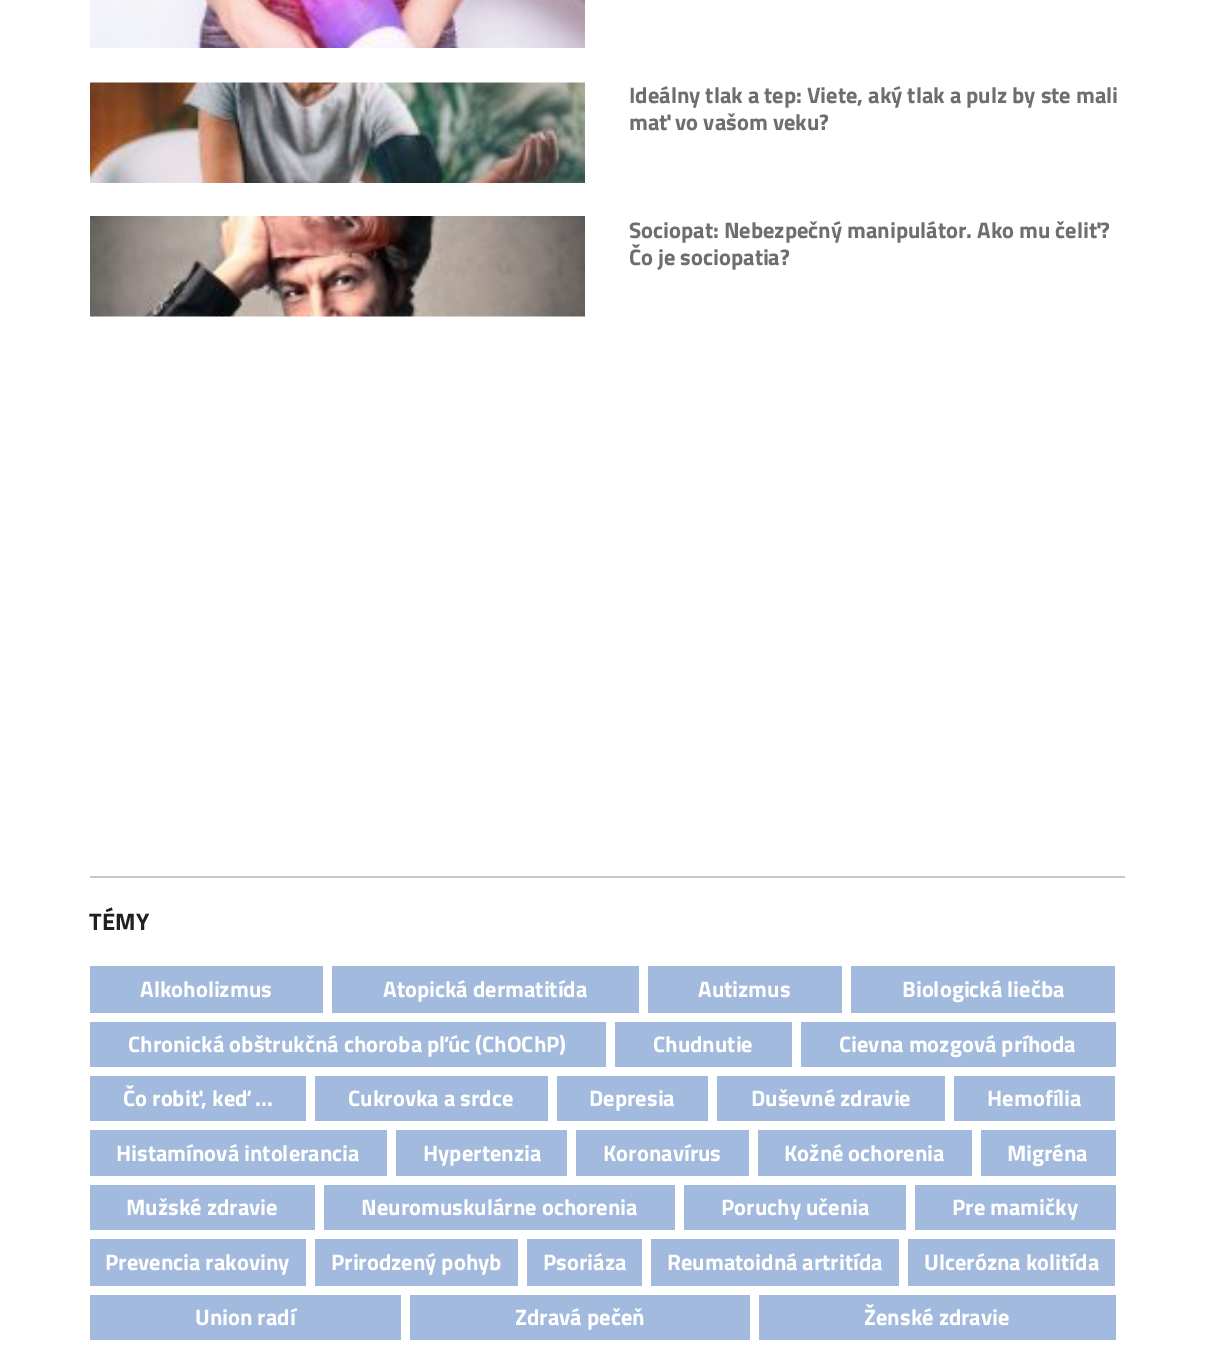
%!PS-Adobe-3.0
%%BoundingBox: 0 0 1213 1353
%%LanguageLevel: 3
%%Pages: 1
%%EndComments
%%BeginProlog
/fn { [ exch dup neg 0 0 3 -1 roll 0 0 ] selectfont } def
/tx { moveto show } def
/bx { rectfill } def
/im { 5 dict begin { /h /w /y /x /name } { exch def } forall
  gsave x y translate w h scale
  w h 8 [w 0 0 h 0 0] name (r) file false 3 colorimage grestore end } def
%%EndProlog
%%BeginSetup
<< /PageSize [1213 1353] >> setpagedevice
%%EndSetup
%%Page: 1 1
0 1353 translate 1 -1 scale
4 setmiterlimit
1 setgray
0 0 1213 1353 bx
(image0.raw) 90 0 495 48 im
(image1.raw) 90 82 495 101 im
/TitilliumWeb-Bold 22.5 fn
0.427 0.431 0.443 setrgbcolor
(Ideálny tlak a tep: Viete, aký tlak a pulz by ste mali) 629 103 tx
(mať vo vašom veku?) 629 130 tx
(image2.raw) 90 216 495 101 im
(Sociopat: Nebezpečný manipulátor. Ako mu čeliť?) 629 238 tx
(Čo je sociopatia?) 629 265 tx
0.78 0.784 0.792 setrgbcolor
90 876 1035 2 bx
/TitilliumWeb-Bold 24 fn
0.137 0.122 0.125 setrgbcolor
(TÉMY) 89 930 tx
0.631 0.729 0.867 setrgbcolor
90 966 233 47 bx
/TitilliumWeb-Bold 22.5 fn
1 setgray
(Alkoholizmus) 140 997 tx
0.631 0.729 0.867 setrgbcolor
332 966 307 47 bx
1 setgray
(Atopická dermatitída) 383 997 tx
0.631 0.729 0.867 setrgbcolor
648 966 194 47 bx
1 setgray
(Autizmus) 698 997 tx
0.631 0.729 0.867 setrgbcolor
851 966 264 47 bx
1 setgray
(Biologická liečba) 902 997 tx
0.631 0.729 0.867 setrgbcolor
90 1022 516 45 bx
1 setgray
(Chronická obštrukčná choroba pľúc \(ChOChP\)) 128 1052 tx
0.631 0.729 0.867 setrgbcolor
615 1022 177 45 bx
1 setgray
(Chudnutie) 653 1052 tx
0.631 0.729 0.867 setrgbcolor
801 1022 315 45 bx
1 setgray
(Cievna mozgová príhoda) 839 1052 tx
0.631 0.729 0.867 setrgbcolor
90 1076 216 45 bx
1 setgray
(Čo robiť, keď ...) 123 1106 tx
0.631 0.729 0.867 setrgbcolor
315 1076 233 45 bx
1 setgray
(Cukrovka a srdce) 348 1106 tx
0.631 0.729 0.867 setrgbcolor
557 1076 151 45 bx
1 setgray
(Depresia) 589 1106 tx
0.631 0.729 0.867 setrgbcolor
717 1076 228 45 bx
1 setgray
(Duševné zdravie) 751 1106 tx
0.631 0.729 0.867 setrgbcolor
954 1076 161 45 bx
1 setgray
(Hemofília) 987 1106 tx
0.631 0.729 0.867 setrgbcolor
90 1130 297 46 bx
1 setgray
(Histamínová intolerancia) 116 1161 tx
0.631 0.729 0.867 setrgbcolor
396 1130 171 46 bx
1 setgray
(Hypertenzia) 423 1161 tx
0.631 0.729 0.867 setrgbcolor
576 1130 173 46 bx
1 setgray
(Koronavírus) 603 1161 tx
0.631 0.729 0.867 setrgbcolor
758 1130 214 46 bx
1 setgray
(Kožné ochorenia) 784 1161 tx
0.631 0.729 0.867 setrgbcolor
981 1130 135 46 bx
1 setgray
(Migréna) 1007 1161 tx
0.631 0.729 0.867 setrgbcolor
90 1185 225 45 bx
1 setgray
(Mužské zdravie) 126 1215 tx
0.631 0.729 0.867 setrgbcolor
324 1185 351 45 bx
1 setgray
(Neuromuskulárne ochorenia) 361 1215 tx
0.631 0.729 0.867 setrgbcolor
684 1185 222 45 bx
1 setgray
(Poruchy učenia) 721 1215 tx
0.631 0.729 0.867 setrgbcolor
915 1185 201 45 bx
1 setgray
(Pre mamičky) 952 1215 tx
0.631 0.729 0.867 setrgbcolor
90 1239 216 47 bx
1 setgray
(Prevencia rakoviny) 105 1270 tx
0.631 0.729 0.867 setrgbcolor
315 1239 203 47 bx
1 setgray
(Prirodzený pohyb) 331 1270 tx
0.631 0.729 0.867 setrgbcolor
527 1239 115 47 bx
1 setgray
(Psoriáza) 543 1270 tx
0.631 0.729 0.867 setrgbcolor
651 1239 248 47 bx
1 setgray
(Reumatoidná artritída) 667 1270 tx
0.631 0.729 0.867 setrgbcolor
908 1239 207 47 bx
1 setgray
(Ulcerózna kolitída) 924 1270 tx
0.631 0.729 0.867 setrgbcolor
90 1295 311 45 bx
1 setgray
(Union radí) 195 1325 tx
0.631 0.729 0.867 setrgbcolor
410 1295 340 45 bx
1 setgray
(Zdravá pečeň) 515 1325 tx
0.631 0.729 0.867 setrgbcolor
759 1295 357 45 bx
1 setgray
(Ženské zdravie) 864 1325 tx
showpage
%%EOF
